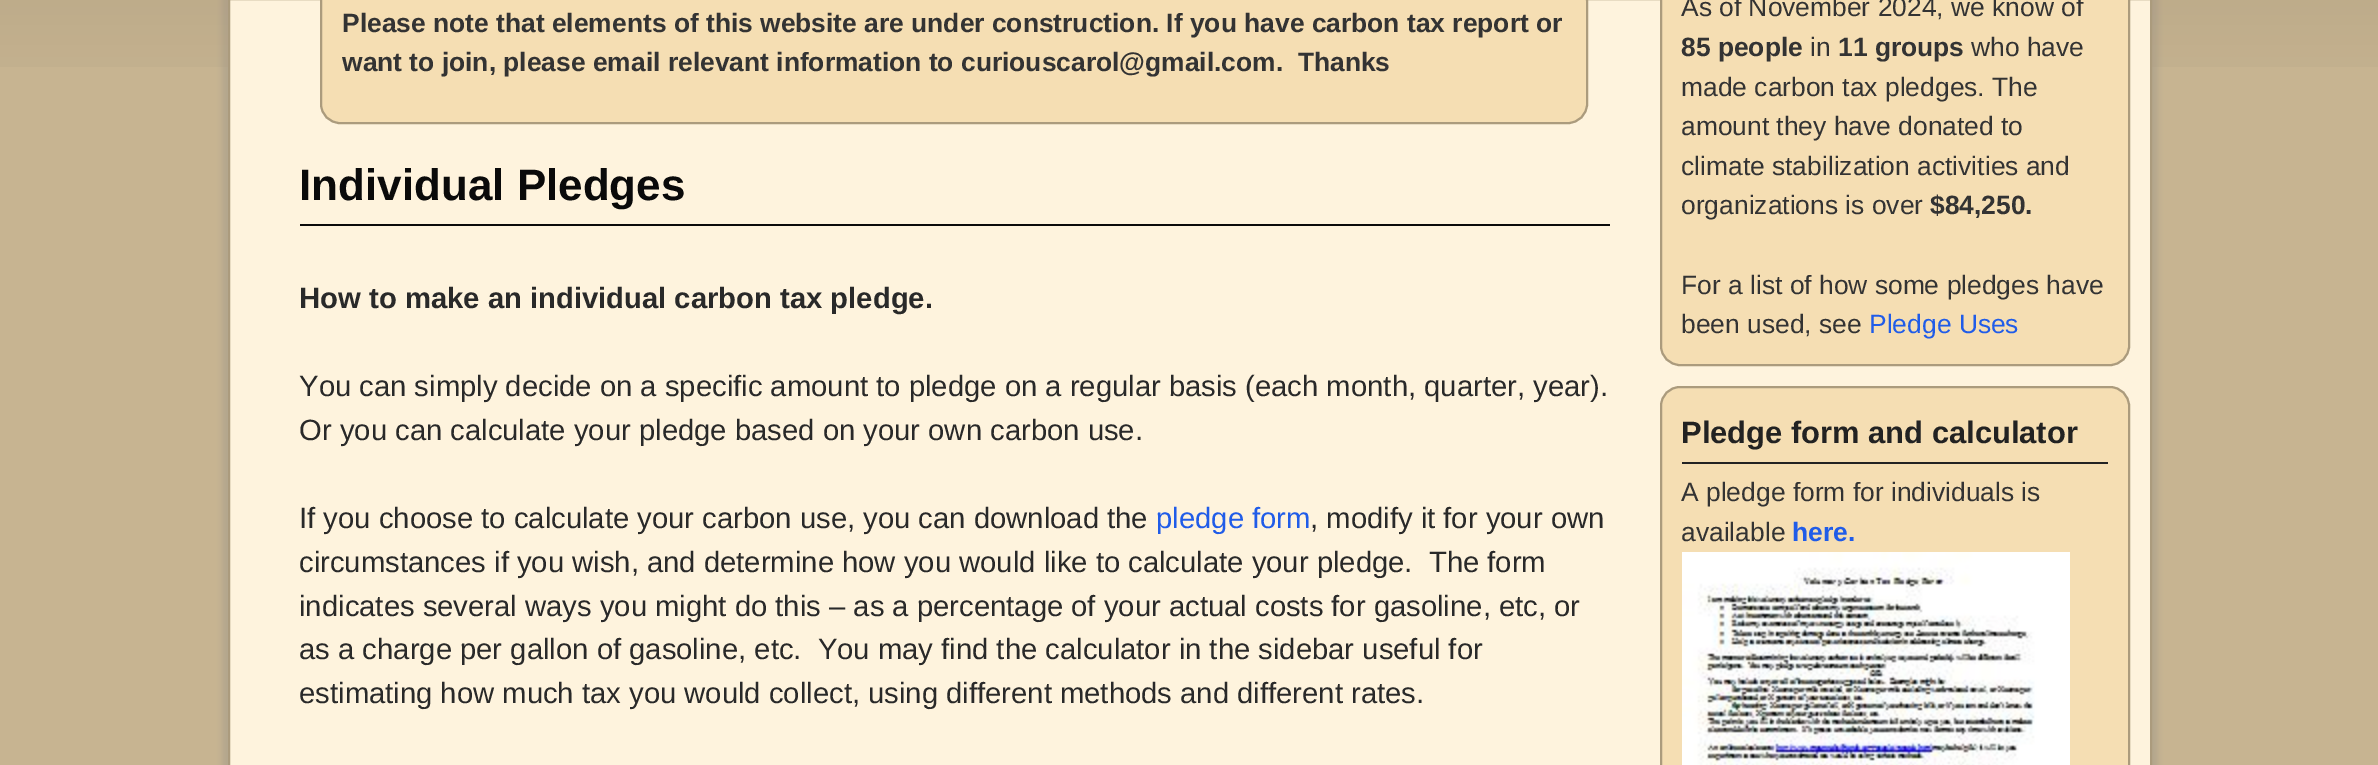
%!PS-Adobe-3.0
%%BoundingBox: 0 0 2378 765
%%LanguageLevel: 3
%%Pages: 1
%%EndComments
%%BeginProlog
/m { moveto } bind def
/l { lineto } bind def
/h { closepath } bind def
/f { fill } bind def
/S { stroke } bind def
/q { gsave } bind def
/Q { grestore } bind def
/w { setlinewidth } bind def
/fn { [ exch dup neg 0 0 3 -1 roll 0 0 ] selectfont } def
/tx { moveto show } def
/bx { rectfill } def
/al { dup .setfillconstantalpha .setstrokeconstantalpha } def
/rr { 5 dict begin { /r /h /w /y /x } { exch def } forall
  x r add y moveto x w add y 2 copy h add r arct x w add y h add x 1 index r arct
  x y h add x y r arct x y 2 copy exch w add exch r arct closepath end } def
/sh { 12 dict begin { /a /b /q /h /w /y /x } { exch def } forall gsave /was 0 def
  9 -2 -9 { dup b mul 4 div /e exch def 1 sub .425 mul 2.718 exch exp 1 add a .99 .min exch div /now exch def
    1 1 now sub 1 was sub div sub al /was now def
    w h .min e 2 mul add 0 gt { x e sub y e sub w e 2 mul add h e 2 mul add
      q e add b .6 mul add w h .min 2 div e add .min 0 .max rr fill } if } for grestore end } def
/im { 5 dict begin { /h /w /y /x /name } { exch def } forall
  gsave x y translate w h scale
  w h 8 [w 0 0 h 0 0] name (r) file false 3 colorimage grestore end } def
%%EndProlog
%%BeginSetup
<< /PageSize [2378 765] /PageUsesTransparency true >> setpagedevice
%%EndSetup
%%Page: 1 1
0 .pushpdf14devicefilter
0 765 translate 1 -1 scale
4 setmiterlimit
0.78 0.706 0.569 setrgbcolor
0 0 2378 765 bx
(image0.raw) 0 0 2378 67 im
0.498 setgray
222 -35 1936 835 26 3 0.25 sh
0.996 0.953 0.867 setrgbcolor
229 -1 m 2151 -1 l 2151 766 l 229 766 l h q f Q
0.671 0.608 0.49 setrgbcolor
2 w
S
0.961 0.871 0.702 setrgbcolor
321 -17 1266 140 19 rr q f Q
0.671 0.608 0.49 setrgbcolor
S
/LiberationSans-Bold 26.4 fn
0.2 setgray
(Please note that elements of this website are under construction. If you have carbon tax report or) 342 32 tx
(want to join, please email relevant information to curiouscarol@gmail.com.  Thanks) 342 71 tx
0.039 setgray
300 224 1310 2 bx
/LiberationSans-Bold 44 fn
(Individual Pledges) 299 200 tx
/LiberationSans-Bold 29.25 fn
0.161 setgray
(How to make an individual carbon tax pledge.) 299 308 tx
/LiberationSans-Regular 29.25 fn
(You can simply decide on a specific amount to pledge on a regular basis \(each month, quarter, year\).) 299 396 tx
(Or you can calculate your pledge based on your own carbon use.) 299 440 tx
(If you choose to calculate your carbon use, you can download the) 299 528 tx
0.125 0.361 0.91 setrgbcolor
(pledge form) 1156 528 tx
0.161 setgray
(, modify it for your own) 1310 528 tx
(circumstances if you wish, and determine how you would like to calculate your pledge.  The form) 299 572 tx
(indicates several ways you might do this – as a percentage of your actual costs for gasoline, etc, or) 299 616 tx
(as a charge per gallon of gasoline, etc.  You may find the calculator in the sidebar useful for) 299 659 tx
(estimating how much tax you would collect, using different methods and different rates.) 299 703 tx
0.961 0.871 0.702 setrgbcolor
1661 -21 468 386 19 rr q f Q
0.671 0.608 0.49 setrgbcolor
S
/LiberationSans-Regular 26.4 fn
0.2 setgray
(As of November 2024, we know of) 1681 16 tx
/LiberationSans-Bold 26.4 fn
(85 people) 1681 56 tx
/LiberationSans-Regular 26.4 fn
(in) 1810 56 tx
/LiberationSans-Bold 26.4 fn
(11 groups) 1838 56 tx
/LiberationSans-Regular 26.4 fn
(who have) 1971 56 tx
(made carbon tax pledges.) 1681 96 tx
(The) 1992 96 tx
(amount they have donated to) 1681 135 tx
(climate stabilization activities and) 1681 175 tx
(organizations is over) 1681 214 tx
/LiberationSans-Bold 26.4 fn
($84,250.) 1930 214 tx
/LiberationSans-Regular 26.4 fn
(For a list of how some pledges have) 1681 294 tx
(been used, see) 1681 333 tx
0.125 0.361 0.91 setrgbcolor
(Pledge Uses) 1869 333 tx
0.961 0.871 0.702 setrgbcolor
1661 387 468 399 19 rr q f Q
0.671 0.608 0.49 setrgbcolor
S
0.133 setgray
1682 462 426 2 bx
/LiberationSans-Bold 30.9 fn
(Pledge form and calculator) 1681 443 tx
/LiberationSans-Regular 26.4 fn
0.2 setgray
(A pledge form for individuals is) 1681 501 tx
(available) 1681 541 tx
/LiberationSans-Bold 26.4 fn
0.125 0.361 0.91 setrgbcolor
(here.) 1792 541 tx
(image1.raw) 1682 552 388 213 im
.poppdf14devicefilter showpage
%%EOF
